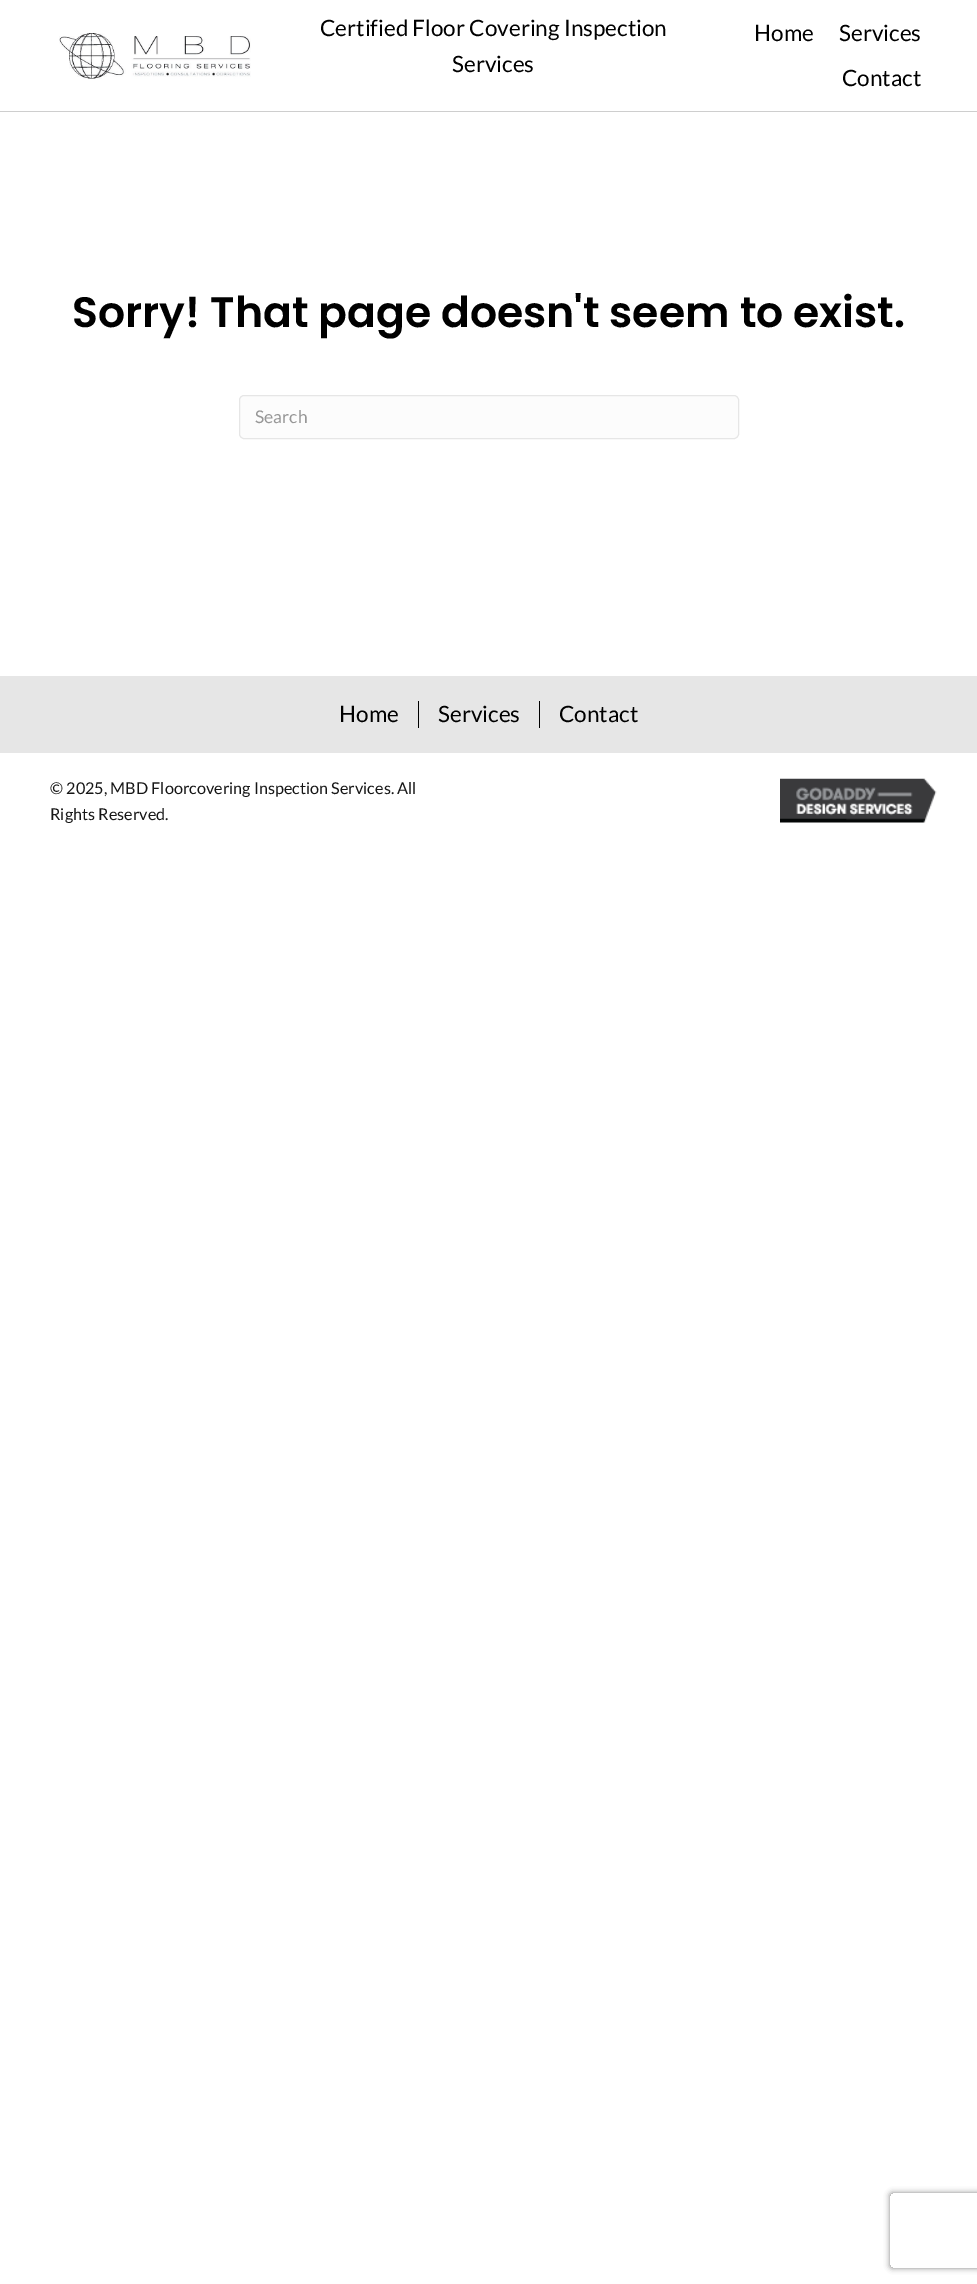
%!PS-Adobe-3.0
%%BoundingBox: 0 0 977 2284
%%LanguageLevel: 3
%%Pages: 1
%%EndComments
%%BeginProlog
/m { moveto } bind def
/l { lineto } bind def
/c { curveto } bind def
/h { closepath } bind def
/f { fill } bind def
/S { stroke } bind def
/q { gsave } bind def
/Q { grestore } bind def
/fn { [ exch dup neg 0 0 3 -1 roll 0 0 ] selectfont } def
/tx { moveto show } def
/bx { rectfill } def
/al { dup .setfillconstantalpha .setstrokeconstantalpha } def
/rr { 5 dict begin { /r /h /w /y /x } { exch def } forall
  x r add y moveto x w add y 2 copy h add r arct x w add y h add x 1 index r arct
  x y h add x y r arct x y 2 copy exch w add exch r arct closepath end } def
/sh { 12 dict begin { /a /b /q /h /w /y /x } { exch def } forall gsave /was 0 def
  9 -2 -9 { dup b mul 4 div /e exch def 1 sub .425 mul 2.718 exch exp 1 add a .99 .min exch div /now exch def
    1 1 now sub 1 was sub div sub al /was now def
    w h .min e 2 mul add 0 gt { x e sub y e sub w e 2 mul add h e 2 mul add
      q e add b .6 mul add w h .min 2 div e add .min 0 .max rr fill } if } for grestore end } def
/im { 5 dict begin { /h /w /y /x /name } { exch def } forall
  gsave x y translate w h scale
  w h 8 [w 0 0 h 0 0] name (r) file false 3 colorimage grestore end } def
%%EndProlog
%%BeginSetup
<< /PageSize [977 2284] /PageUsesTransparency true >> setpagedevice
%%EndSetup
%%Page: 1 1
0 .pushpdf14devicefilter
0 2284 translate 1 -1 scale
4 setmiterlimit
1 setgray
0 0 977 2284 bx
0.808 setgray
0 111 977 1 bx
(image0.raw) 59 33 192 46 im
/Lato-Regular 22.5 fn
0 setgray
(Certified Floor Covering Inspection) 320 36 tx
(Services) 452 72 tx
(Home) 754 41 tx
(Services) 839 41 tx
(Contact) 842 86 tx
/Poppins-SemiBold 42.5 fn
(Sorry! That page doesn't seem to exist.) 72 327 tx
0.988 setgray
239.5 395.5 499 43 4.5 rr q f Q
0.902 setgray
S
/Lato-Regular 17.5 fn
0.592 setgray
(Search) 255 423 tx
0.902 setgray
0 676 977 77 bx
/Lato-Regular 22.5 fn
0 setgray
(Home) 339 722 tx
418 701 1 27 bx
(Services) 438 722 tx
539 701 1 27 bx
(Contact) 559 722 tx
/Lato-Regular 16.25 fn
0.086 setgray
(© 2025, MBD Floorcovering Inspection Services. All) 50 794 tx
(Rights Reserved.) 50 820 tx
(image1.raw) 780 778 157 45 im
q
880 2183 m 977 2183 l 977 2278 l 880 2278 l h 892.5 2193 m 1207.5 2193 l 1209 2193 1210 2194 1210 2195.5 c 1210 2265.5 l 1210 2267 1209 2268 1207.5 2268 c 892.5 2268 l 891 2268 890 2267 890 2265.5 c 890 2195.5 l 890 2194 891 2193 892.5 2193 c h eoclip newpath
0.502 setgray
890 2193 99 75 2.5 3 1 sh
Q
.poppdf14devicefilter showpage
%%EOF
